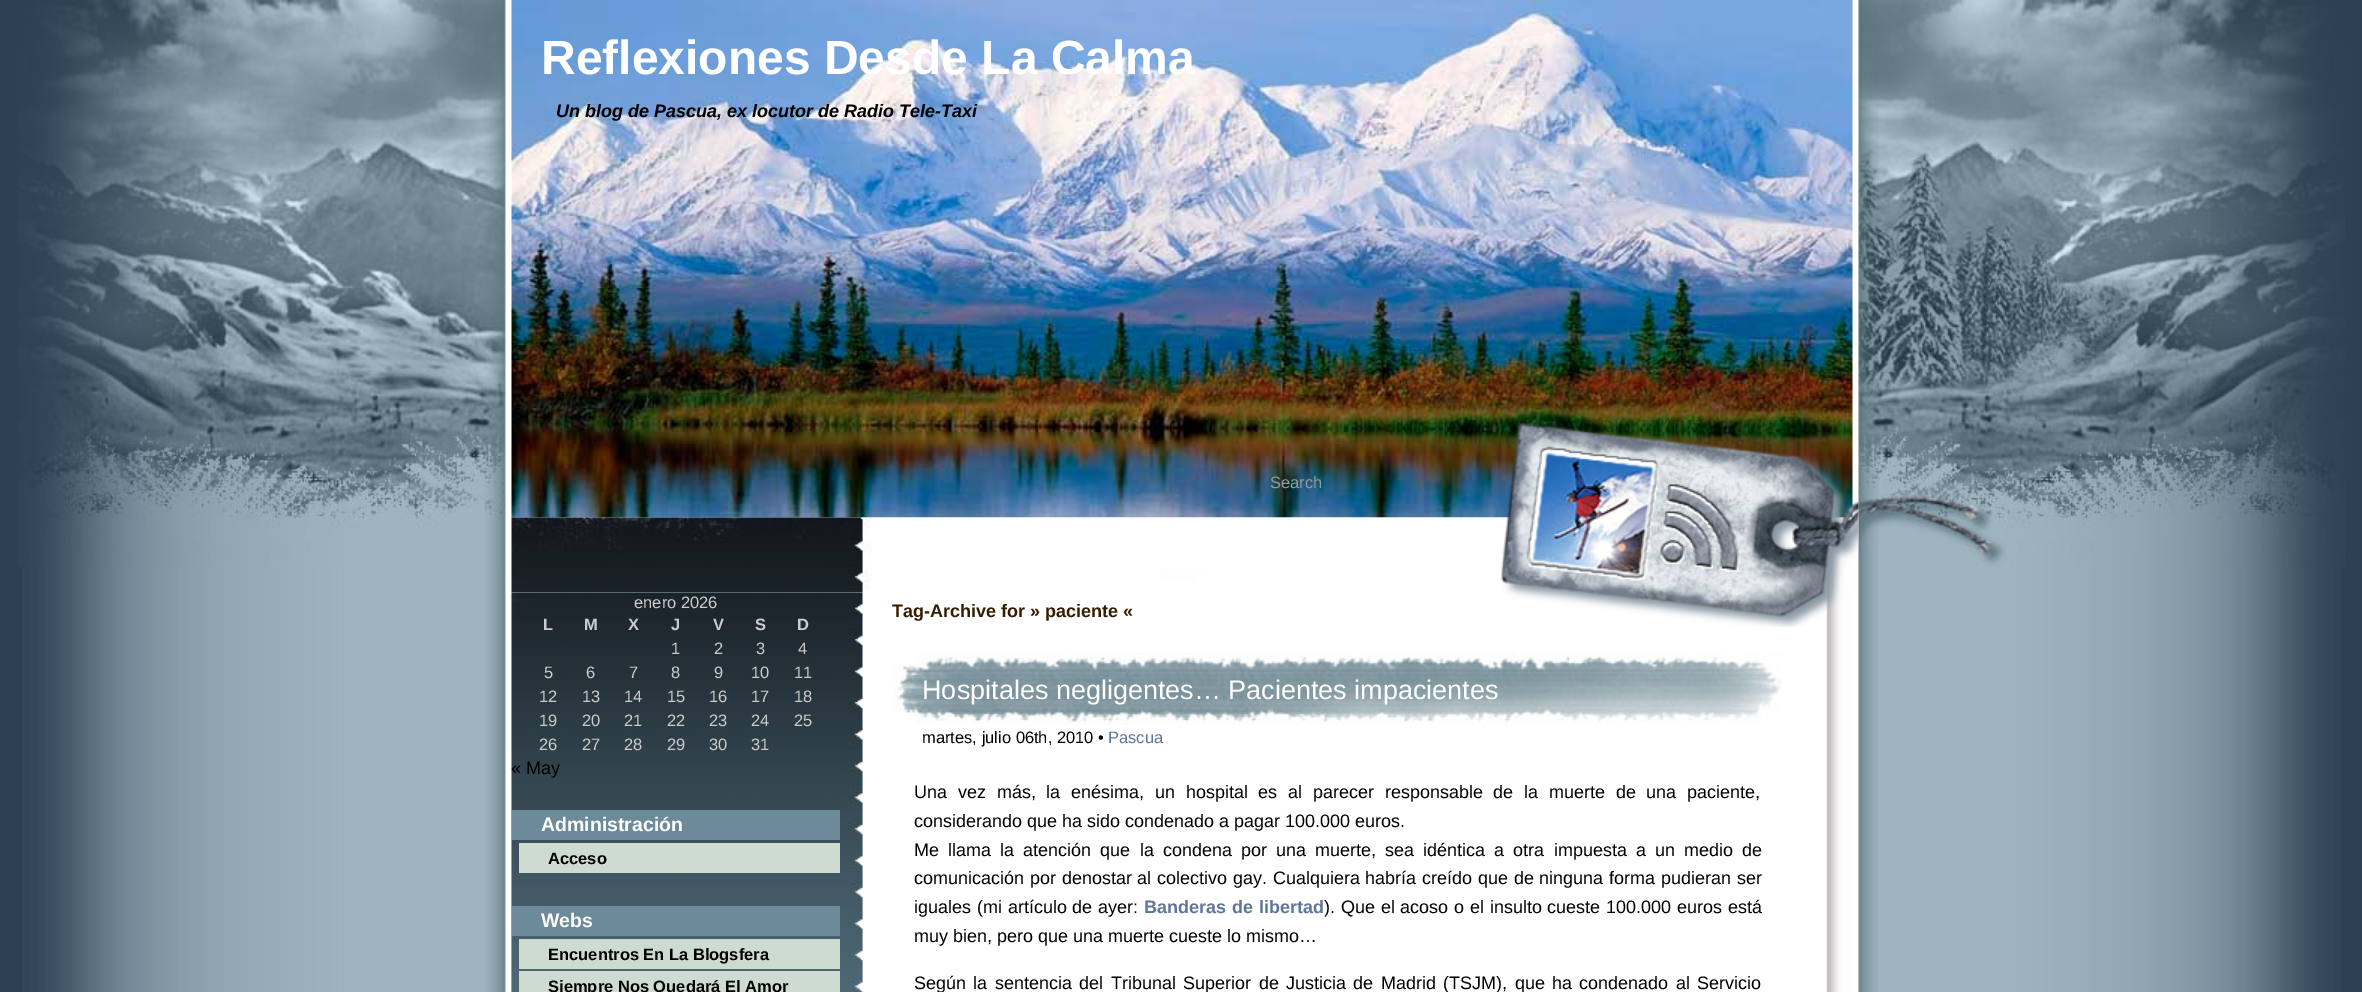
%!PS-Adobe-3.0
%%BoundingBox: 0 0 2362 992
%%LanguageLevel: 3
%%Pages: 1
%%EndComments
%%BeginProlog
/m { moveto } bind def
/fn { [ exch dup neg 0 0 3 -1 roll 0 0 ] selectfont } def
/tx { moveto show } def
/bx { rectfill } def
/im { 5 dict begin { /h /w /y /x /name } { exch def } forall
  gsave x y translate w h scale
  w h 8 [w 0 0 h 0 0] name (r) file false 3 colorimage grestore end } def
%%EndProlog
%%BeginSetup
<< /PageSize [2362 992] >> setpagedevice
%%EndSetup
%%Page: 1 1
0 992 translate 1 -1 scale
4 setmiterlimit
0.173 0.255 0.325 setrgbcolor
0 0 2362 992 bx
(image0.raw) 22 567 2319 425 im
(image1.raw) 18 0 2327 567 im
(image2.raw) 484 0 1395 992 im
(image3.raw) 511 0 1342 518 im
/LiberationSans-Bold 48 fn
1 setgray
(Reflexiones Desde La Calma) 541 74 tx
/LiberationSans-BoldItalic 18 fn
0 setgray
(Un blog de Pascua, ex locutor de Radio Tele-Taxi) 556 117 tx
/LiberationSans-Regular 16.5 fn
0.6 setgray
(Search) 1270 488 tx
(image4.raw) 511 517 1342 76 im
(image5.raw) 1501 422 358 205 im
(image6.raw) 511 592 352 400 im
(image7.raw) 511 592 352 400 im
0.8 setgray
(enero 2026) 634 608 tx
/LiberationSans-Bold 16.5 fn
(L) 543 630 tx
(M) 584 630 tx
(X) 628 630 tx
(J) 671 630 tx
(V) 713 630 tx
(S) 755 630 tx
(D) 797 630 tx
/LiberationSans-Regular 16.5 fn
(1) 671 654 tx
(2) 714 654 tx
(3) 756 654 tx
(4) 798 654 tx
(5) 544 678 tx
(6) 586 678 tx
(7) 629 678 tx
(8) 671 678 tx
(9) 714 678 tx
(10) 751 678 tx
(11) 794 678 tx
(12) 539 702 tx
(13) 582 702 tx
(14) 624 702 tx
(15) 667 702 tx
(16) 709 702 tx
(17) 751 702 tx
(18) 794 702 tx
(19) 539 726 tx
(20) 582 726 tx
(21) 624 726 tx
(22) 667 726 tx
(23) 709 726 tx
(24) 751 726 tx
(25) 794 726 tx
(26) 539 750 tx
(27) 582 750 tx
(28) 624 750 tx
(29) 667 750 tx
(30) 709 750 tx
(31) 751 750 tx
/LiberationSans-Regular 18 fn
0 setgray
(« May) 511 774 tx
0.427 0.541 0.604 setrgbcolor
512 810 328 30 bx
/LiberationSans-Bold 19.5 fn
1 setgray
(Administración) 541 831 tx
0.808 0.859 0.816 setrgbcolor
519 843 321 30 bx
/LiberationSans-Bold 16.5 fn
0 setgray
(Acceso) 548 864 tx
0.427 0.541 0.604 setrgbcolor
512 906 328 30 bx
/LiberationSans-Bold 19.5 fn
1 setgray
(Webs) 541 927 tx
0.808 0.859 0.816 setrgbcolor
519 939 321 30 bx
/LiberationSans-Bold 16.5 fn
0 setgray
(Encuentros En La Blogsfera) 548 960 tx
0.808 0.859 0.816 setrgbcolor
519 971 321 21 bx
0 setgray
(Siempre Nos Quedará El Amor) 548 992 tx
/LiberationSans-Bold 18 fn
0.208 0.118 0 setrgbcolor
(Tag-Archive for » paciente «) 892 617 tx
(image8.raw) 892 652 890 73 im
/LiberationSans-Regular 27 fn
1 setgray
(Hospitales negligentes… Pacientes impacientes) 922 699 tx
/LiberationSans-Regular 16.5 fn
0 setgray
(martes, julio 06th, 2010 •) 922 743 tx
0.365 0.463 0.604 setrgbcolor
(Pascua) 1108 743 tx
/LiberationSans-Regular 18 fn
0 setgray
914 798 m 5.75 0 32 (Una vez más, la enésima, un hospital es al parecer responsable de la muerte de una paciente,) widthshow
(considerando que ha sido condenado a pagar 100.000 euros.) 914 827 tx
914 856 m 4.1 0 32 (Me llama la atención que la condena por una muerte, sea idéntica a otra impuesta a un medio de) widthshow
914 884 m 0.75 0 32 (comunicación por denostar al colectivo gay. Cualquiera habría creído que de ninguna forma pudieran ser) widthshow
914 913 m 0.75 0 32 (iguales \(mi artículo de ayer:) widthshow
/LiberationSans-Bold 18 fn
0.365 0.463 0.604 setrgbcolor
1144 913 m 0.75 0 32 (Banderas de libertad) widthshow
/LiberationSans-Regular 18 fn
0 setgray
1324 913 m 0.75 0 32 (\). Que el acoso o el insulto cueste 100.000 euros está) widthshow
(muy bien, pero que una muerte cueste lo mismo…) 914 942 tx
914 989 m 2.4 0 32 (Según la sentencia del Tribunal Superior de Justicia de Madrid \(TSJM\), que ha condenado al Servicio) widthshow
showpage
%%EOF
